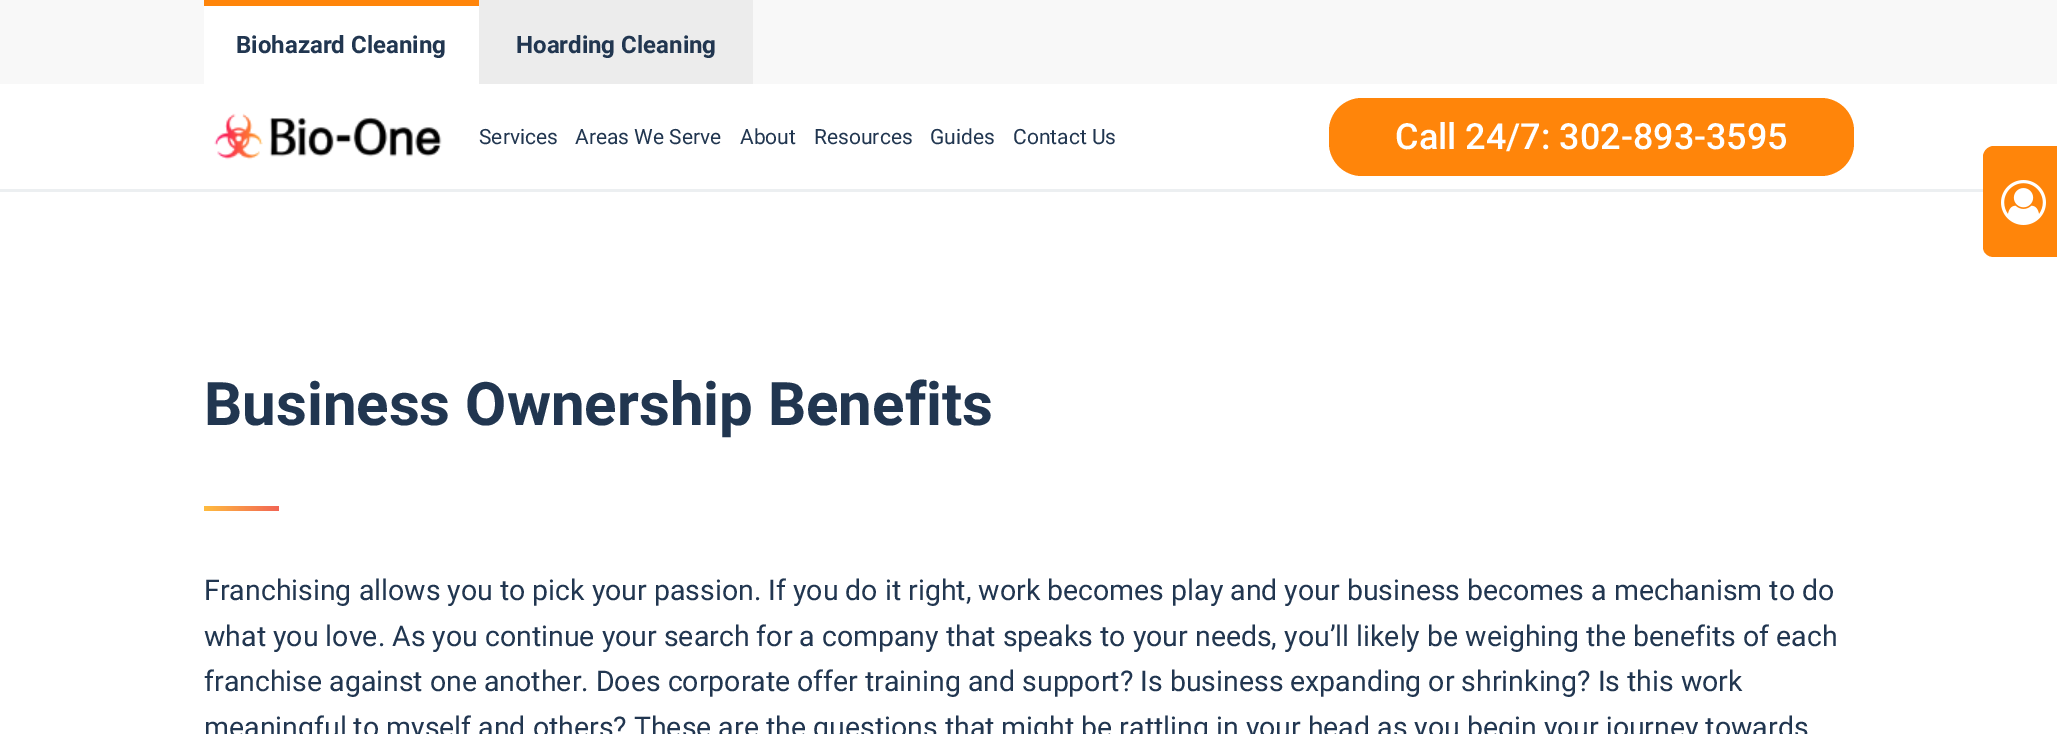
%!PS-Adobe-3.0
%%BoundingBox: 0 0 2057 734
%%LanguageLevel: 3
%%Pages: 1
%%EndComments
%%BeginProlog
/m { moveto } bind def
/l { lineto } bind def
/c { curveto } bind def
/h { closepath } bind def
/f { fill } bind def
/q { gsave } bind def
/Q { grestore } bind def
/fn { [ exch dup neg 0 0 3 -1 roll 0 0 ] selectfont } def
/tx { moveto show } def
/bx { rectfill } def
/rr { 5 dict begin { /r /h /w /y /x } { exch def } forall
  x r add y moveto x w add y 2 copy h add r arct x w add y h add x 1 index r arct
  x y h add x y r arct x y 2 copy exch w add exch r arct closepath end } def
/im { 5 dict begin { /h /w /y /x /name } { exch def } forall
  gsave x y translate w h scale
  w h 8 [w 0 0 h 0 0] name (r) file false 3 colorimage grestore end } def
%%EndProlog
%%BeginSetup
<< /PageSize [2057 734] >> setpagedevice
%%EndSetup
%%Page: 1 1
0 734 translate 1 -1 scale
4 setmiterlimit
1 setgray
0 0 2057 734 bx
0.925 0.937 0.945 setrgbcolor
0 189 1983 3 bx
0.973 setgray
0 0 2057 84 bx
1 setgray
204 6 275 78 bx
1 0.522 0.039 setrgbcolor
204 0 275 6 bx
/Roboto-Bold 24 fn
0.129 0.212 0.314 setrgbcolor
(Biohazard Cleaning) 236 53 tx
0.925 setgray
479 0 274 84 bx
0.129 0.212 0.314 setrgbcolor
(Hoarding Cleaning) 516 53 tx
(image0.raw) 214 113 228 47 im
/Roboto-Regular 21 fn
(Services) 479 144 tx
(Areas We Serve) 575 144 tx
(About) 740 144 tx
(Resources) 814 144 tx
(Guides) 930 144 tx
(Contact Us) 1013 144 tx
1 0.522 0.039 setrgbcolor
1329 98 525 78 33 rr f
/Roboto-Medium 36 fn
1 setgray
(Call 24/7: 302-893-3595) 1395 149 tx
1 0.522 0.039 setrgbcolor
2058 146 m 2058 257 l 1994 257 l 1988 257 1983 253 1983 247 c 1983 157 l 1983 151 1988 146 1994 146 c h f
(image1.raw) 2001 180 45 45 im
/Roboto-Bold 60 fn
0.129 0.212 0.314 setrgbcolor
(Business Ownership Benefits) 204 425 tx
q 204 506 m 279 506 l 279 511 l 204 511 l h clip newpath
<< /ShadingType 2 /ColorSpace /DeviceRGB /Coords [204 508 279 508] /Extend [true true] /Function << /FunctionType 2 /Domain [0 1] /C0 [1 0.737 0.247] /C1 [0.949 0.396 0.329] /N 1 >> >> shfill Q
/Roboto-Regular 28.5 fn
(Franchising allows you to pick your passion. If you do it right, work becomes play and your business becomes a mechanism to do) 204 600 tx
(what you love. As you continue your search for a company that speaks to your needs, you’ll likely be weighing the benefits of each) 204 646 tx
(franchise against one another. Does corporate offer training and support? Is business expanding or shrinking? Is this work) 204 691 tx
(meaningful to myself and others? These are the questions that might be rattling in your head as you begin your journey towards) 204 737 tx
showpage
%%EOF
